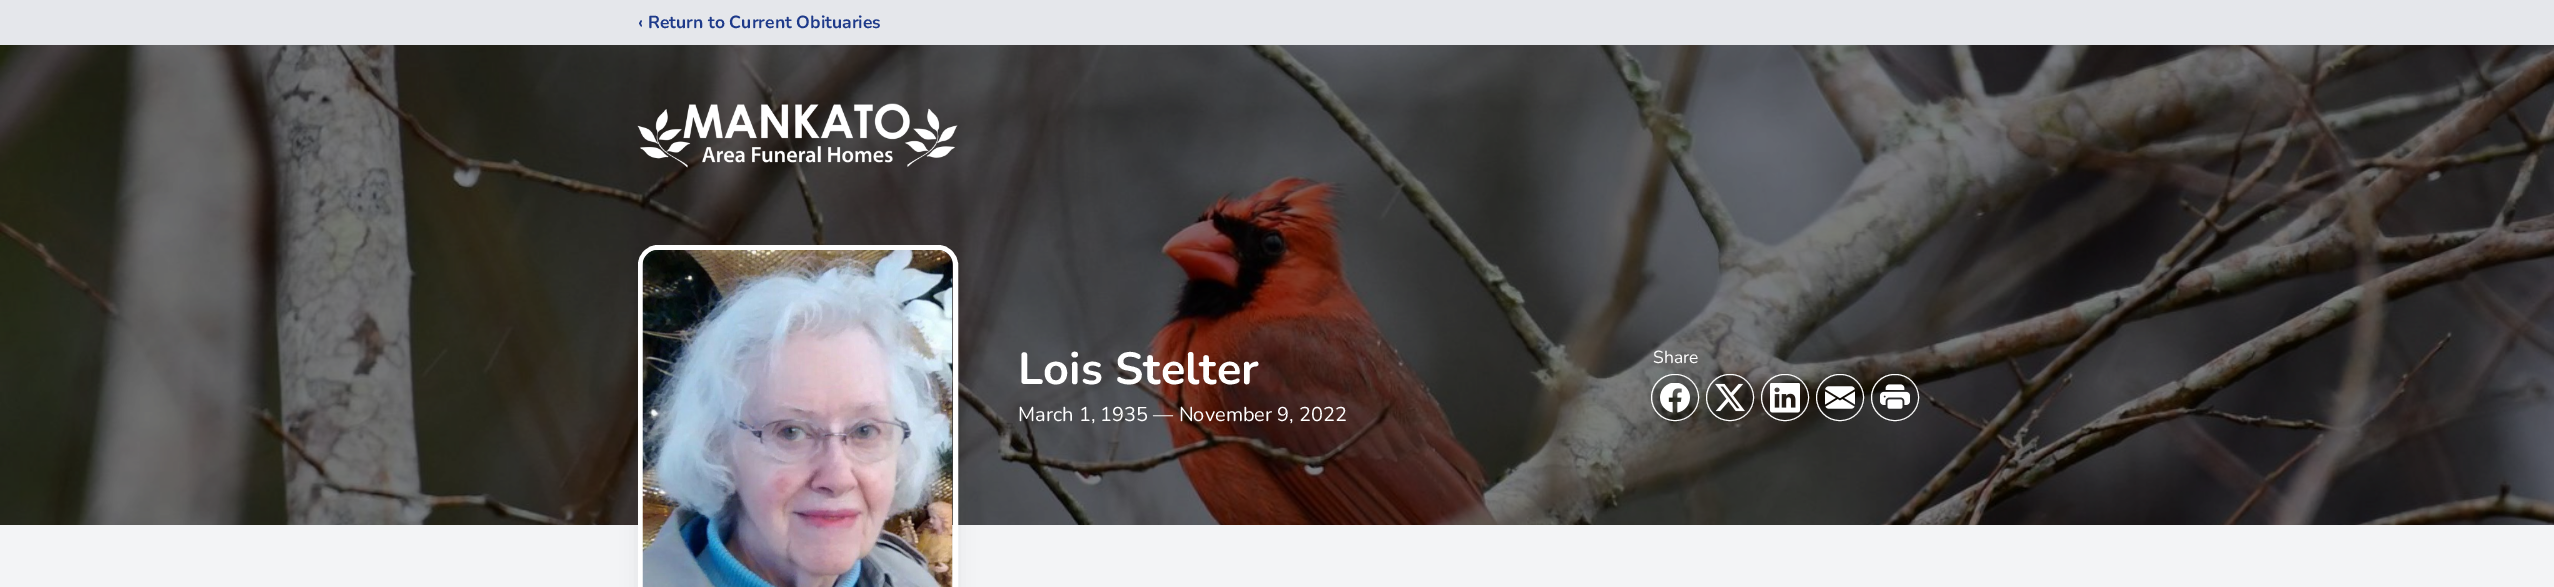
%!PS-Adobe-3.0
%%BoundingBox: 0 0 2554 587
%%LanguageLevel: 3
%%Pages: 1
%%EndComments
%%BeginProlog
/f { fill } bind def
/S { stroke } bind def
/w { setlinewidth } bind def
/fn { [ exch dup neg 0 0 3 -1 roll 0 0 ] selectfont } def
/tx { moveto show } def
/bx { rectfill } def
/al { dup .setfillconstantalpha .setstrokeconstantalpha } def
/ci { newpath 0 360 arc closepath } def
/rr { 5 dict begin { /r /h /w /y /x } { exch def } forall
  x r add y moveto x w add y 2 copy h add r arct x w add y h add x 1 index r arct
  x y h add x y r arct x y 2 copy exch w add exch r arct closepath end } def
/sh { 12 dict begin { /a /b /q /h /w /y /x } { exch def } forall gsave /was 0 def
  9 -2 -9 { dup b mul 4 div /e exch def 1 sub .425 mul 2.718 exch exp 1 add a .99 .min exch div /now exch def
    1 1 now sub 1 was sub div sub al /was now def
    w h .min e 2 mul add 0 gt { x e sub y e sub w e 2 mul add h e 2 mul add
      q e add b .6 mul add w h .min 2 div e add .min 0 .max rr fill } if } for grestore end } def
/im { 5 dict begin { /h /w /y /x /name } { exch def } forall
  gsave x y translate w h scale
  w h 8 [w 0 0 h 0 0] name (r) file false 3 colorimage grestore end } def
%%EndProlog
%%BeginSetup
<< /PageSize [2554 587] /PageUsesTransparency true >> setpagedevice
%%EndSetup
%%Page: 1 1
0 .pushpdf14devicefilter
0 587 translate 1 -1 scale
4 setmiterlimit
0.953 0.957 0.965 setrgbcolor
0 0 2554 587 bx
0.898 0.906 0.922 setrgbcolor
0 0 2554 45 bx
/Nunito-Bold 17.5 fn
0.118 0.227 0.541 setrgbcolor
(‹ Return to Current Obituaries) 638 28 tx
(image0.raw) 0 45 2554 480 im
(image1.raw) 637 103 321 65 im
0 setgray
641 261 313 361 6 9.5 0.1 sh
1 setgray
5 w
640.5 247.5 315 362 17.5 rr S
(image2.raw) 642 250 311 337 im
/Nunito-Bold 45 fn
(Lois Stelter) 1018 384 tx
/Nunito-Regular 20 fn
(March 1, 1935 — November 9, 2022) 1018 421 tx
/Nunito-Regular 17.5 fn
(Share) 1653 363 tx
1 w
1651.5 374.5 47 46 23 rr S
0.2 al
0 setgray
1675.5 397.5 22.5 ci f
1 al
(image3.raw) 1660 383 30 30 im
1 setgray
1706.5 374.5 47 46 23 rr S
0.2 al
0 setgray
1730.5 397.5 22.5 ci f
1 al
(image4.raw) 1715 383 30 29 im
1 setgray
1761.5 374.5 47 46 23 rr S
0.2 al
0 setgray
1785.5 397.5 22.5 ci f
1 al
(image5.raw) 1770 383 30 30 im
1 setgray
1816.5 374.5 47 46 23 rr S
0.2 al
0 setgray
1840.5 397.5 22.5 ci f
1 al
(image6.raw) 1825 386 30 23 im
1 setgray
1871.5 374.5 47 46 23 rr S
0.2 al
0 setgray
1895.5 397.5 22.5 ci f
1 al
(image7.raw) 1880 384 30 25 im
.poppdf14devicefilter showpage
%%EOF
